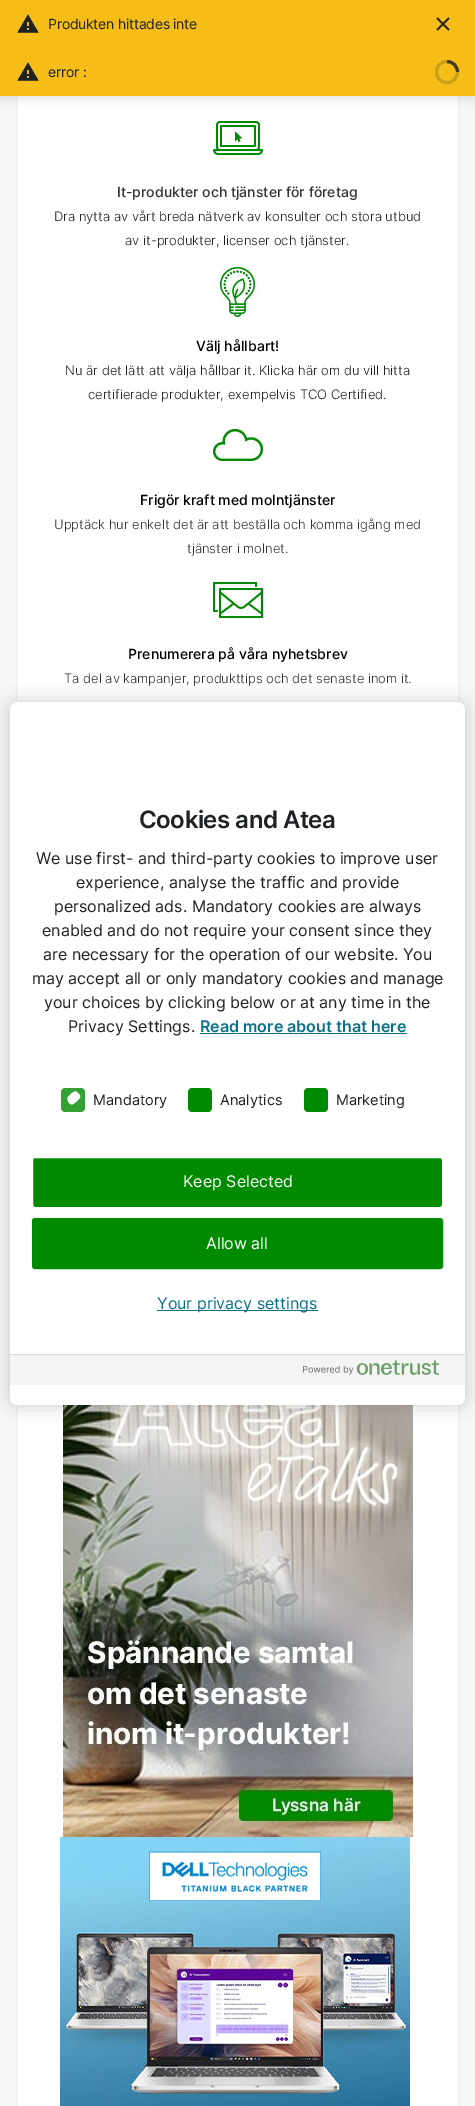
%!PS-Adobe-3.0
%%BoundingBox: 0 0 475 2106
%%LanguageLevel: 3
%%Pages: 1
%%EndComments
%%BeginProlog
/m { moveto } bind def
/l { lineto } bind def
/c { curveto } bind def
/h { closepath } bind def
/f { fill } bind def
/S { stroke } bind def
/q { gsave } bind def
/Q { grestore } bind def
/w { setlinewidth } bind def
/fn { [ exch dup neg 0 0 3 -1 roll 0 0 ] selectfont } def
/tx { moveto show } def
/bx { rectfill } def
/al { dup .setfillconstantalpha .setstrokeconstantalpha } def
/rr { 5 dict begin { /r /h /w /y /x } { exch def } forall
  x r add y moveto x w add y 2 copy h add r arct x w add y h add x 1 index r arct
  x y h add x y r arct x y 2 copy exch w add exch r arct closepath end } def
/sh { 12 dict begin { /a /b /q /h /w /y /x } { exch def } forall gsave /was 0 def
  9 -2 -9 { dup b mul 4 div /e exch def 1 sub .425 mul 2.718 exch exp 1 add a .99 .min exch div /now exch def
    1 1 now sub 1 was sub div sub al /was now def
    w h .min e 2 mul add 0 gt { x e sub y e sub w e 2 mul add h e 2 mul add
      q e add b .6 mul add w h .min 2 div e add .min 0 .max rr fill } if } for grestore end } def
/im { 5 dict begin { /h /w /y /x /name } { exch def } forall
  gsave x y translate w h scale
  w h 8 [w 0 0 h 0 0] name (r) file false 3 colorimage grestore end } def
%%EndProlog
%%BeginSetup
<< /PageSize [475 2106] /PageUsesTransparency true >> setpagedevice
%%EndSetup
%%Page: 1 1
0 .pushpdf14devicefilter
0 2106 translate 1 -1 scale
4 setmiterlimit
0.969 setgray
0 0 475 2106 bx
1 setgray
17 96 441 607 bx
0.929 0.933 0.933 setrgbcolor
16.5 87.5 442 667 rectstroke
0 setgray
0 52 475 48 0 4 0.1 sh
0.965 0.741 0.094 setrgbcolor
0 0 475 96 bx
(image0.raw) 17 14 22 19 im
/Inter-Regular 14 fn
0.118 0.133 0.141 setrgbcolor
48 29 m -0.25 0 (Produkten hittades inte) ashow
(image1.raw) 436 17 14 14 im
(image0.raw) 17 62 22 19 im
48 77 m -0.25 0 (error :) ashow
0.796 0.62 0.102 setrgbcolor
3 w
447 61.5 m 461 61.5 461 82.5 447 82.5 c 433 82.5 433 61.5 447 61.5 c S
0.8 al
0.118 0.133 0.141 setrgbcolor
447 61.5 m 453 61.5 457.5 66.5 457.5 72 c S
1 al
(image2.raw) 213 121 50 40 im
/Inter-Medium 14 fn
0.2 setgray
(It-produkter och tjänster för företag) 117 197 tx
/Inter-Light 13 fn
0.118 0.133 0.141 setrgbcolor
(Dra nytta av vårt breda nätverk av konsulter och stora utbud) 54 221 tx
(av it-produkter, licenser och tjänster.) 125 245 tx
(image3.raw) 213 267 48 50 im
/Inter-Medium 14 fn
0 setgray
(Välj hållbart!) 196 351 tx
/Inter-Light 13 fn
0.118 0.133 0.141 setrgbcolor
(Nu är det lätt att välja hållbar it. Klicka här om du vill hitta) 65 375 tx
(certifierade produkter, exempelvis TCO Certified.) 88 399 tx
(image4.raw) 213 429 50 32 im
/Inter-Medium 14 fn
0 setgray
(Frigör kraft med molntjänster) 140 505 tx
/Inter-Light 13 fn
0.2 setgray
(Upptäck hur enkelt det är att beställa och komma igång med) 54 529 tx
(tjänster i molnet.) 187 553 tx
(image5.raw) 213 575 50 48 im
/Inter-Medium 14 fn
0 setgray
(Prenumerera på våra nyhetsbrev) 128 659 tx
/Inter-Light 13 fn
0.2 setgray
(Ta del av kampanjer, produkttips och det senaste inom it.) 64 683 tx
1 setgray
17 1404 441 702 bx
0.929 0.933 0.933 setrgbcolor
1 w
16.5 771.5 442 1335 rectstroke
(image6.raw) 63 1405 350 432 im
(image7.raw) 60 1837 350 269 im
0 setgray
10 702 455 703 8 9 0.2 sh
1 setgray
10 702 455 703 8 rr f
/Inter-SemiBold 24 fn
0.118 0.133 0.141 setrgbcolor
139 828 m -0.5 0 (Cookies and Atea) ashow
/Inter-Regular 16 fn
(We use first- and third-party cookies to improve user) 36 864 tx
(experience, analyse the traffic and provide) 76 888 tx
(personalized ads. Mandatory cookies are always) 54 912 tx
(enabled and do not require your consent since they) 42 936 tx
(are necessary for the operation of our website. You) 43 960 tx
(may accept all or only mandatory cookies and manage) 32 984 tx
(your choices by clicking below or at any time in the) 44 1008 tx
(Privacy Settings.) 68 1032 tx
/Inter-SemiBold 16 fn
0.035 0.447 0.533 setrgbcolor
(Read more about that here) 200 1032 tx
200 1033 207 1 bx
0.2 0.631 0.2 setrgbcolor
65 1088 m 81 1088 l 83 1088 85 1090 85 1092 c 85 1108 l 85 1110 83 1112 81 1112 c 65 1112 l 63 1112 61 1110 61 1108 c 61 1092 l 61 1090 63 1088 65 1088 c h f
1 setgray
68 1097 m 69.5 1095.5 74 1089.5 77 1092 c 79.5 1094.5 l 80 1095.5 80.5 1096.5 80 1097.5 c 80 1098.5 73.5 1104.5 72 1104.5 c 69.5 1104.5 66 1100 68 1097 c h f
/Inter-Regular 14.5 fn
0.118 0.133 0.141 setrgbcolor
(Mandatory) 93 1105 tx
0 0.541 0 setrgbcolor
192 1088 m 208 1088 l 210 1088 212 1090 212 1092 c 212 1108 l 212 1110 210 1112 208 1112 c 192 1112 l 190 1112 188 1110 188 1108 c 188 1092 l 188 1090 190 1088 192 1088 c h f
0.118 0.133 0.141 setrgbcolor
(Analytics) 220 1105 tx
0 0.541 0 setrgbcolor
308 1088 m 324 1088 l 326 1088 328 1090 328 1092 c 328 1108 l 328 1110 326 1112 324 1112 c 308 1112 l 306 1112 304 1110 304 1108 c 304 1092 l 304 1090 306 1088 308 1088 c h f
0.118 0.133 0.141 setrgbcolor
(Marketing) 336 1105 tx
0 0.541 0 setrgbcolor
32.5 1157.5 410 50 2.5 rr q f Q
1 setgray
S
/Inter-Regular 16 fn
(Keep Selected) 183 1187 tx
0 0.541 0 setrgbcolor
32.5 1218.5 410 50 2.5 rr q f Q
S
1 setgray
(Allow all) 206 1249 tx
0.035 0.447 0.533 setrgbcolor
157 1310 161 1 bx
(Your privacy settings) 157 1309 tx
0.957 setgray
10 1355 455 30 bx
0.847 setgray
10 1354 455 1 bx
(image8.raw) 303 1360 136 15 im
.poppdf14devicefilter showpage
%%EOF
